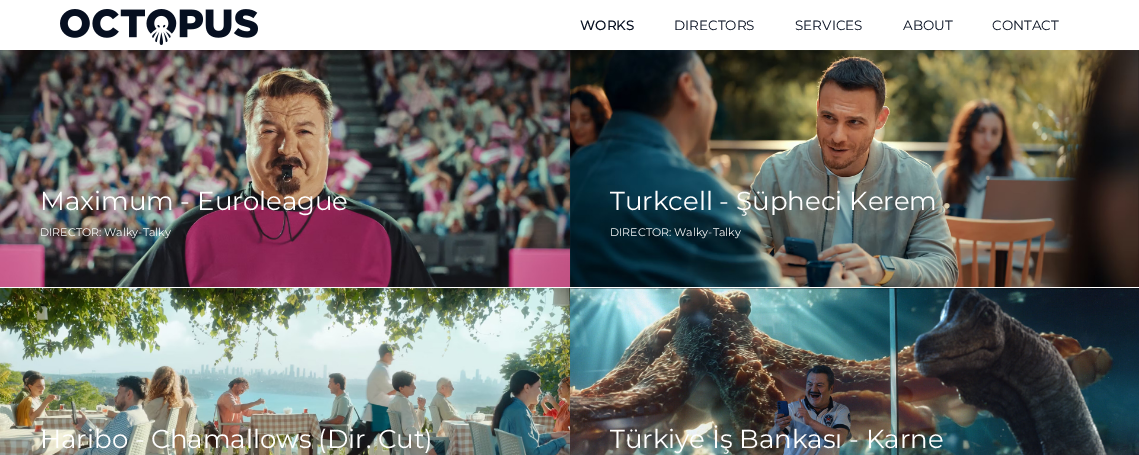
%!PS-Adobe-3.0
%%BoundingBox: 0 0 1139 455
%%LanguageLevel: 3
%%Pages: 1
%%EndComments
%%BeginProlog
/fn { [ exch dup neg 0 0 3 -1 roll 0 0 ] selectfont } def
/tx { moveto show } def
/bx { rectfill } def
/im { 5 dict begin { /h /w /y /x /name } { exch def } forall
  gsave x y translate w h scale
  w h 8 [w 0 0 h 0 0] name (r) file false 3 colorimage grestore end } def
%%EndProlog
%%BeginSetup
<< /PageSize [1139 455] >> setpagedevice
%%EndSetup
%%Page: 1 1
0 455 translate 1 -1 scale
4 setmiterlimit
1 setgray
0 0 1139 455 bx
(image0.raw) 60 9 198 36 im
/Montserrat-Medium 13.5 fn
0.024 0.059 0.125 setrgbcolor
(WORKS) 580 30 tx
/Montserrat-Regular 13.5 fn
(DIRECTORS) 674 30 tx
(SERVICES) 795 30 tx
(ABOUT) 903 30 tx
(CONTACT) 992 30 tx
(image1.raw) 0 50 570 237 im
/Montserrat-Regular 26 fn
1 setgray
(Maximum - Euroleague) 40 210 tx
/Montserrat-Regular 11 fn
(DIRECTOR: Walky-Talky) 40 236 tx
(image2.raw) 570 50 569 237 im
/Montserrat-Regular 26 fn
(Turkcell - Şüpheci Kerem) 610 210 tx
/Montserrat-Regular 11 fn
(DIRECTOR: Walky-Talky) 610 236 tx
(image3.raw) 0 288 570 167 im
/Montserrat-Regular 26 fn
(Haribo - Chamallows \(Dir. Cut\)) 40 448 tx
(image4.raw) 570 288 569 167 im
(Türkiye İş Bankası - Karne) 610 448 tx
showpage
%%EOF
